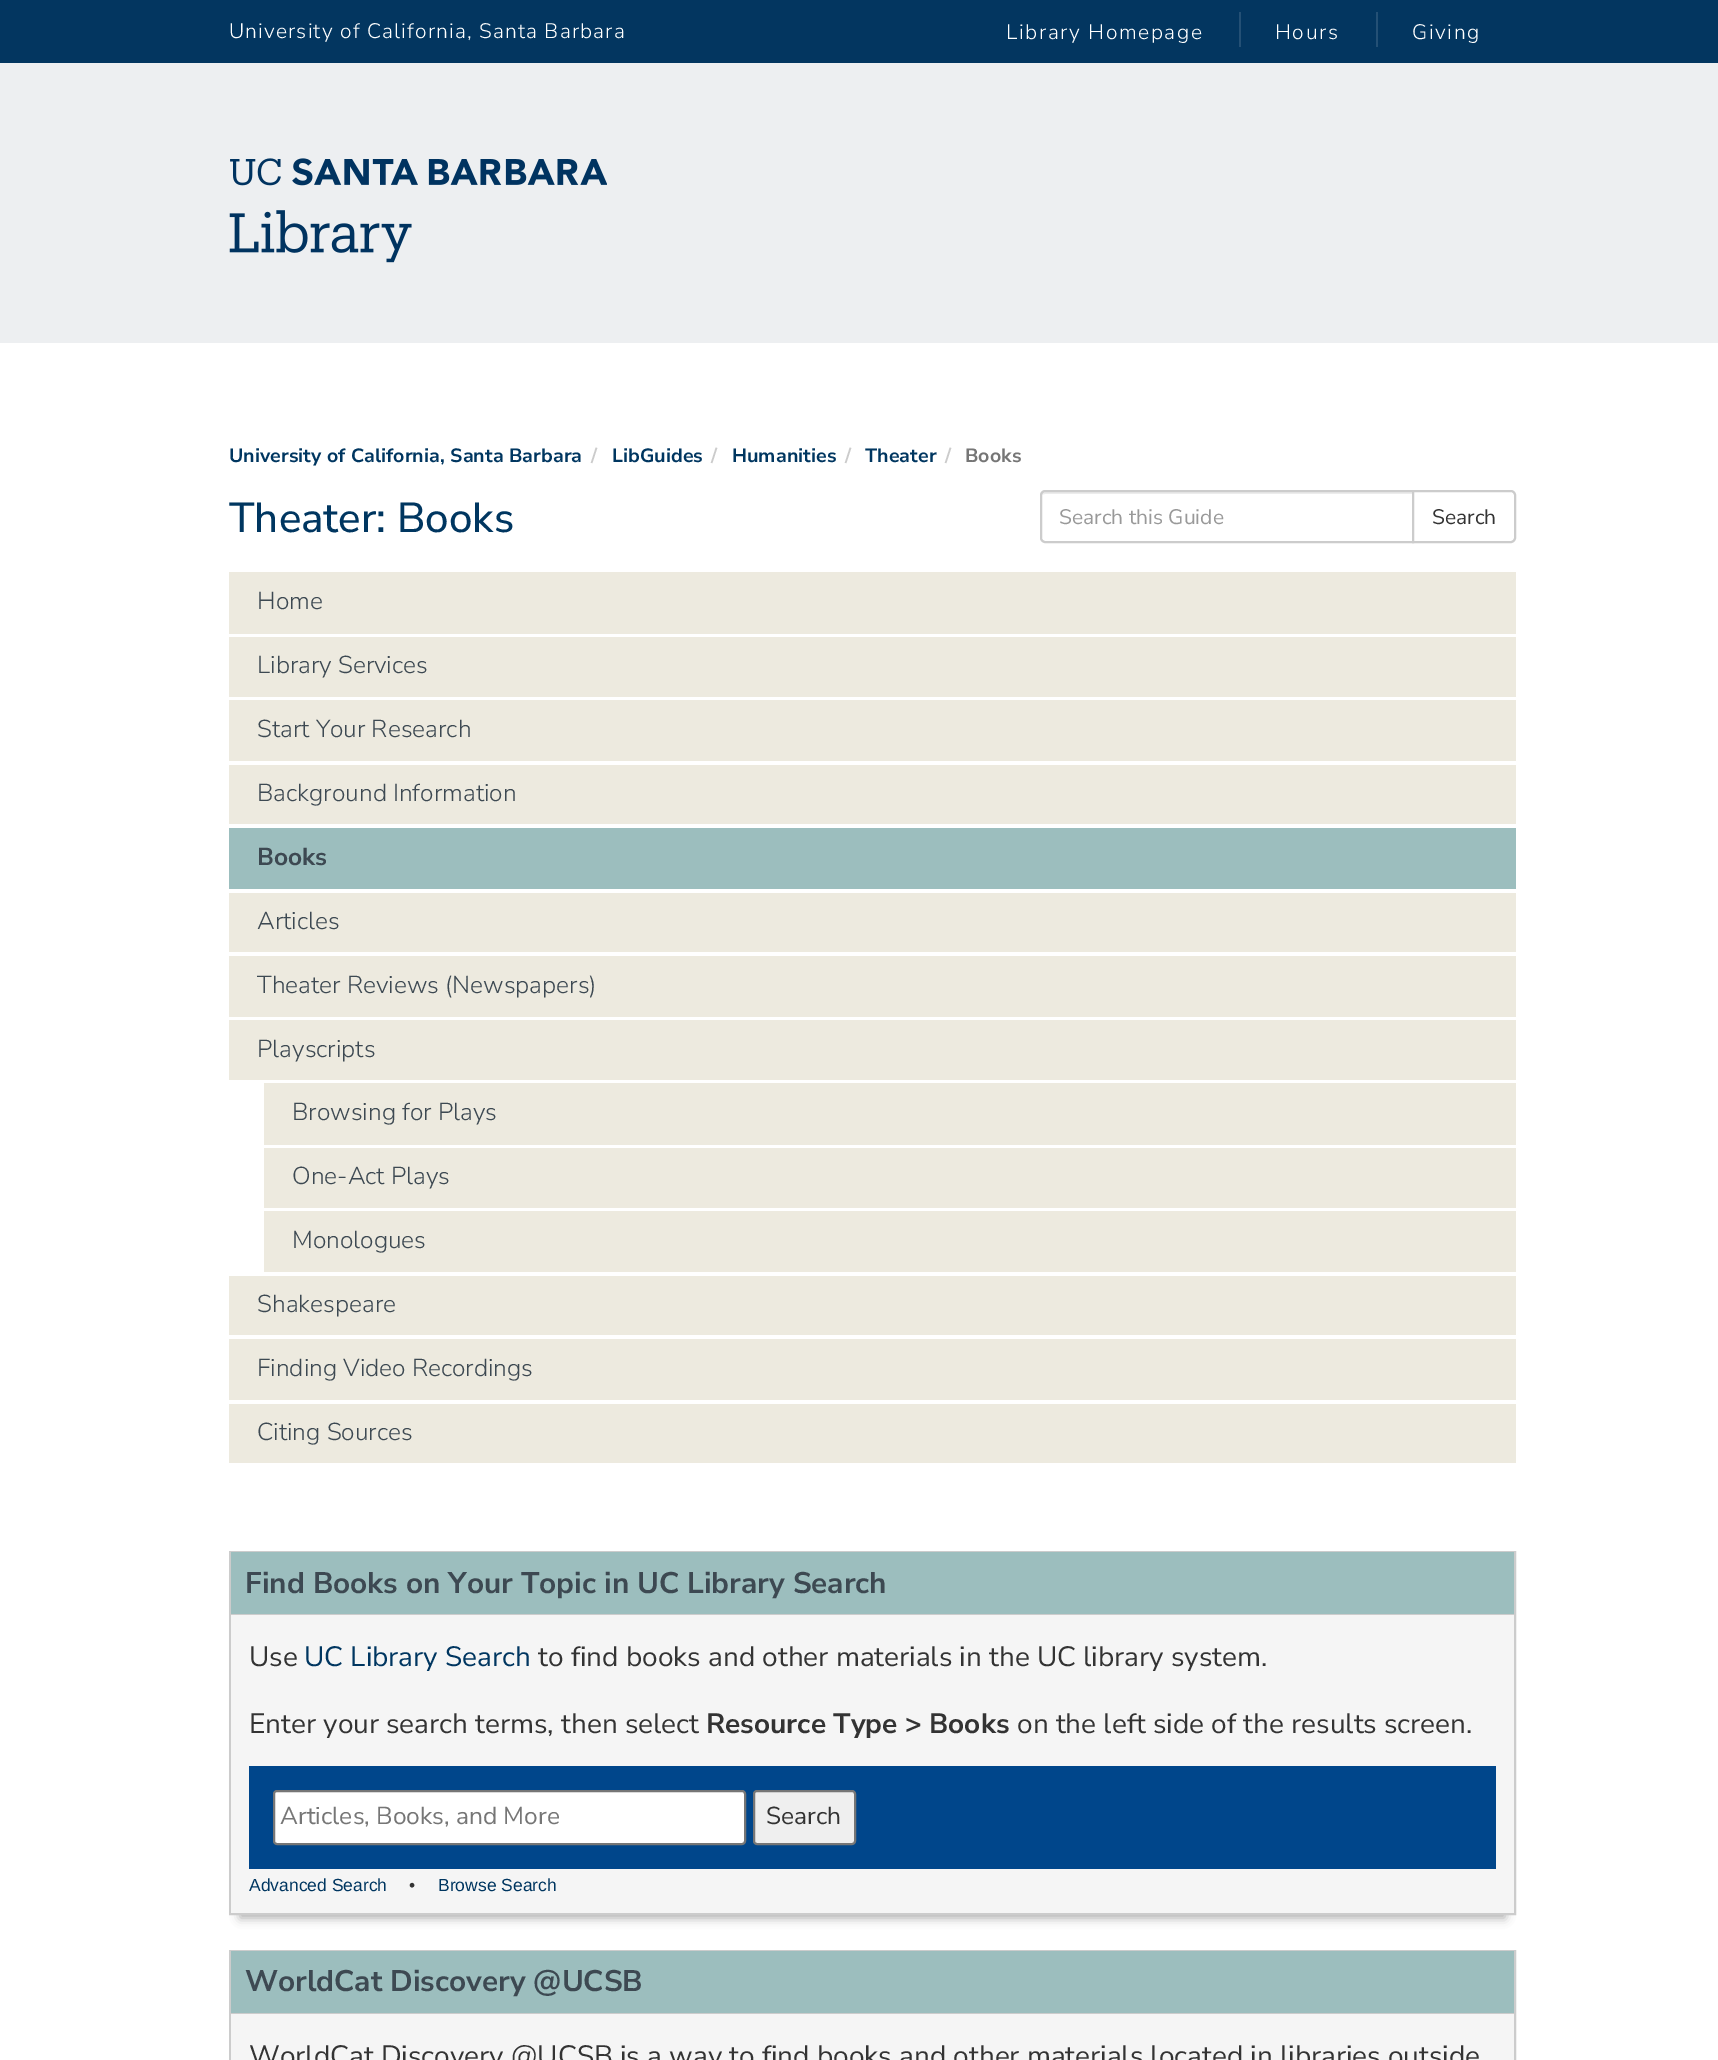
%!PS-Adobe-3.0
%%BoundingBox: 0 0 1718 2060
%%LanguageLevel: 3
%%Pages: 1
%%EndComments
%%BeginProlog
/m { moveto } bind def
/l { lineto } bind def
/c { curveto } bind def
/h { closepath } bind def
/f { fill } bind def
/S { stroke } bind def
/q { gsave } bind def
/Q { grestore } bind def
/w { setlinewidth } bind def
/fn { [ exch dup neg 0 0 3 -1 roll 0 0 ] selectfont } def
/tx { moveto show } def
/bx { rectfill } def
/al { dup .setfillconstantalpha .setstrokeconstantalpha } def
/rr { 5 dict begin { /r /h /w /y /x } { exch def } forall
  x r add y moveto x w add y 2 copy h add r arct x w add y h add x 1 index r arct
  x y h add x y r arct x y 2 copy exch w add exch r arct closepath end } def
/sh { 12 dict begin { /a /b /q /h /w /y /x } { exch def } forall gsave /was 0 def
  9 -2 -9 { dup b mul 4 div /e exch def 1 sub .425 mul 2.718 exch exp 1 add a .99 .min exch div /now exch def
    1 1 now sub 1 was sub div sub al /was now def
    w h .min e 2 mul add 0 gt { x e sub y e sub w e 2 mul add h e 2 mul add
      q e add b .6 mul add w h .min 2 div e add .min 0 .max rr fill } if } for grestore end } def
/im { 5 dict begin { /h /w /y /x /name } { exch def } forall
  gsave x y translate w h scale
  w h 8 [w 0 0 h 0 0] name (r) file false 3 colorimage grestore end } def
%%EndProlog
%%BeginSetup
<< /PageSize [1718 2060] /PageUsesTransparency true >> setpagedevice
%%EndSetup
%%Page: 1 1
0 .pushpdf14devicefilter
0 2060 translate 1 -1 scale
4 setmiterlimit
1 setgray
0 0 1718 2060 bx
0.012 0.212 0.376 setrgbcolor
0 0 1718 63 bx
/NunitoSans-Light 21 fn
1 setgray
229 38 m 1.15 0 (University of California, Santa Barbara) ashow
1006 39 m 1.6 0 (Library Homepage) ashow
0.141 0.314 0.459 setrgbcolor
1239 12 2 35 bx
1 setgray
1275 39 m 1.6 0 (Hours) ashow
0.141 0.314 0.459 setrgbcolor
1376 12 2 35 bx
1 setgray
1412 39 m 1.6 0 (Giving) ashow
0.929 0.937 0.945 setrgbcolor
0 63 1718 280 bx
(image0.raw) 229 158 378 105 im
/NunitoSans-Bold 19.25 fn
0 0.212 0.376 setrgbcolor
(University of California, Santa Barbara) 229 462 tx
0.8 setgray
(/) 591 462 tx
0 0.212 0.376 setrgbcolor
(LibGuides) 612 462 tx
0.8 setgray
(/) 711 462 tx
0 0.212 0.376 setrgbcolor
(Humanities) 732 462 tx
0.8 setgray
(/) 845 462 tx
0 0.212 0.376 setrgbcolor
(Theater) 865 462 tx
0.8 setgray
(/) 945 462 tx
0.463 setgray
(Books) 965 462 tx
/NunitoSans-Medium 42 fn
0 0.212 0.376 setrgbcolor
(Theater: Books) 229 532 tx
0.925 setgray
1045 494 m 1412 494 l 1412 492 l 1045 492 l 1042 492 1041 494 1041 497 c 1041 495 1043 494 1045 494 c h f
0.8 setgray
2 w
1045 491 m 1413 491 l 1413 542 l 1045 542 l 1043 542 1041 540 1041 538 c 1041 495 l 1041 493 1043 491 1045 491 c h S
/NunitoSans-Regular 21 fn
0.6 setgray
(Search this Guide) 1059 524 tx
1 setgray
1413 491 m 1511 491 l 1513 491 1515 493 1515 495 c 1515 538 l 1515 540 1513 542 1511 542 c 1413 542 l h q f Q
0.8 setgray
S
0.2 setgray
(Search) 1432 524 tx
0.929 0.918 0.875 setrgbcolor
229 572 1287 62 bx
/NunitoSans-Light 24.5 fn
0.239 0.286 0.322 setrgbcolor
(Home) 257 609 tx
0.929 0.918 0.875 setrgbcolor
229 637 1287 60 bx
0.239 0.286 0.322 setrgbcolor
(Library Services) 257 673 tx
0.929 0.918 0.875 setrgbcolor
229 700 1287 61 bx
0.239 0.286 0.322 setrgbcolor
(Start Your Research) 257 737 tx
0.929 0.918 0.875 setrgbcolor
229 765 1287 59 bx
0.239 0.286 0.322 setrgbcolor
(Background Information) 257 801 tx
0.612 0.745 0.745 setrgbcolor
229 828 1287 61 bx
/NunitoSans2-Bold 24.5 fn
0.239 0.286 0.322 setrgbcolor
(Books) 257 865 tx
0.929 0.918 0.875 setrgbcolor
229 893 1287 59 bx
/NunitoSans-Light 24.5 fn
0.239 0.286 0.322 setrgbcolor
(Articles) 257 929 tx
0.929 0.918 0.875 setrgbcolor
229 956 1287 61 bx
0.239 0.286 0.322 setrgbcolor
(Theater Reviews \(Newspapers\)) 257 993 tx
0.929 0.918 0.875 setrgbcolor
229 1020 1287 60 bx
0.239 0.286 0.322 setrgbcolor
(Playscripts) 257 1057 tx
0.929 0.918 0.875 setrgbcolor
264 1083 1252 62 bx
0.239 0.286 0.322 setrgbcolor
(Browsing for Plays) 292 1120 tx
0.929 0.918 0.875 setrgbcolor
264 1148 1252 60 bx
0.239 0.286 0.322 setrgbcolor
(One-Act Plays) 292 1184 tx
0.929 0.918 0.875 setrgbcolor
264 1211 1252 61 bx
0.239 0.286 0.322 setrgbcolor
(Monologues) 292 1248 tx
0.929 0.918 0.875 setrgbcolor
229 1276 1287 59 bx
0.239 0.286 0.322 setrgbcolor
(Shakespeare) 257 1312 tx
0.929 0.918 0.875 setrgbcolor
229 1339 1287 61 bx
0.239 0.286 0.322 setrgbcolor
(Finding Video Recordings) 257 1376 tx
0.929 0.918 0.875 setrgbcolor
229 1404 1287 59 bx
0.239 0.286 0.322 setrgbcolor
(Citing Sources) 257 1440 tx
0.667 setgray
240 1575 1265 343 0 5 1 sh
0.8 setgray
230 1552 1285 362 rectstroke
0.612 0.745 0.745 setrgbcolor
231 1552 1283 62 bx
0.8 setgray
231 1614 1283 1 bx
/NunitoSans2-Bold 29.75 fn
0.239 0.286 0.322 setrgbcolor
(Find Books on Your Topic in UC Library Search) 245 1593 tx
0.961 setgray
231 1615 1283 298 bx
/NunitoSans-Regular 28 fn
0.2 setgray
(Use) 249 1666 tx
0 0.212 0.376 setrgbcolor
(UC Library Search) 304 1666 tx
0.2 setgray
(to find books and other materials in the UC library system.) 538 1666 tx
(Enter your search terms, then select) 249 1733 tx
/NunitoSans2-Bold 28 fn
(Resource Type >) 706 1733 tx
(Books) 929 1733 tx
/NunitoSans-Regular 28 fn
(on the left side of the results screen.) 1017 1733 tx
0 0.275 0.545 setrgbcolor
249 1766 1247 103 bx
1 setgray
274 1791 471 53 3 rr q f Q
0.463 setgray
S
/NunitoSans-Regular 24.5 fn
(Articles, Books, and More) 280 1824 tx
0.937 setgray
754 1791 101 53 3 rr q f Q
0.463 setgray
S
0.2 setgray
(Search) 766 1824 tx
/LiberationSans-Regular 17.5 fn
0 0.212 0.376 setrgbcolor
(Advanced Search) 249 1891 tx
0.2 setgray
(•) 409 1891 tx
0 0.212 0.376 setrgbcolor
(Browse Search) 438 1891 tx
0.8 setgray
230 1951 1285 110 rectstroke
0.612 0.745 0.745 setrgbcolor
231 1951 1283 62 bx
0.8 setgray
231 2013 1283 1 bx
/NunitoSans2-Bold 29.75 fn
0.239 0.286 0.322 setrgbcolor
(WorldCat Discovery @UCSB) 245 1991 tx
0.961 setgray
231 2014 1283 46 bx
/NunitoSans-Regular 28 fn
0.2 setgray
(WorldCat Discovery @UCSB is a way to find books and other materials located in libraries outside) 249 2065 tx
.poppdf14devicefilter showpage
%%EOF
